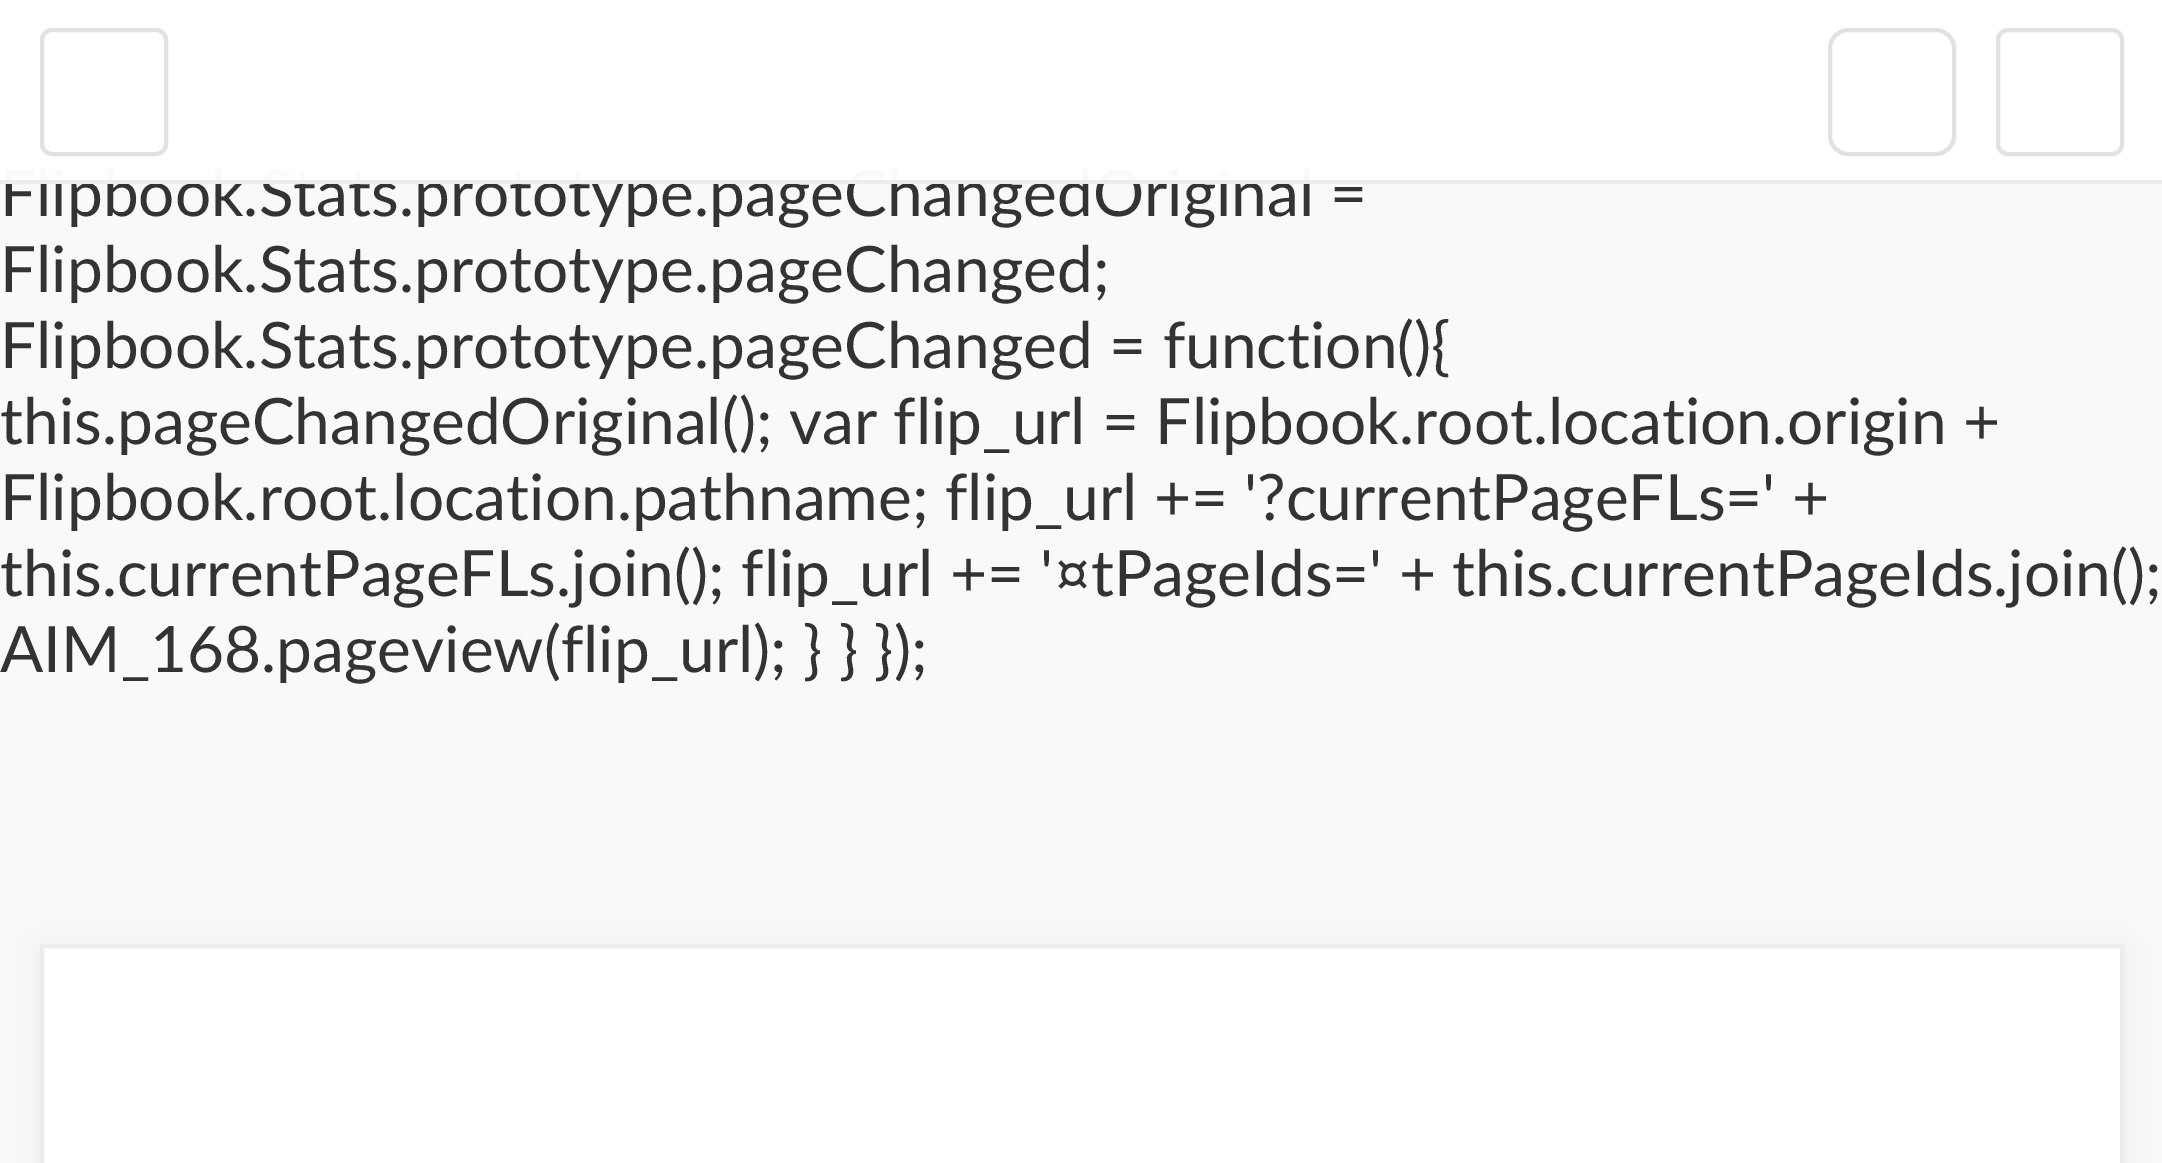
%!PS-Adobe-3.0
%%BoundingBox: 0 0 2162 1163
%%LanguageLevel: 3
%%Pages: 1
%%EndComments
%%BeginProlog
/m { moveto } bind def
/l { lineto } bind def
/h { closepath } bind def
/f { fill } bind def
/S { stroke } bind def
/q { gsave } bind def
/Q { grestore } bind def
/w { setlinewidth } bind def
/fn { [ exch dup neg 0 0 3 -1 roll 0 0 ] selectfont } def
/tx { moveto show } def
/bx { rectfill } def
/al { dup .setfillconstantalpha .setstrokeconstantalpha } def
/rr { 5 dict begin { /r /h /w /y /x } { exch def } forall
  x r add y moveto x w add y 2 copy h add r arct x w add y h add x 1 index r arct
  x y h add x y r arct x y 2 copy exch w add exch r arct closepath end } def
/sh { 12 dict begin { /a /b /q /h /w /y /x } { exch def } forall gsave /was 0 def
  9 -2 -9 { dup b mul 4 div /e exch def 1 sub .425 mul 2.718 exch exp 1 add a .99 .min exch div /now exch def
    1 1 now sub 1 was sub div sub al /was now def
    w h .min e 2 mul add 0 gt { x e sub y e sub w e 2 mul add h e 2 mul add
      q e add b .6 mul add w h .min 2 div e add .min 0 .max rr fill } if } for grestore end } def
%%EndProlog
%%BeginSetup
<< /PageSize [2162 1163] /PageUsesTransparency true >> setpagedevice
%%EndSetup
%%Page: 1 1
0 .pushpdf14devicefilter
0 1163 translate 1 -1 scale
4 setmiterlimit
0.976 setgray
0 0 2162 1163 bx
/Lato-Regular 64 fn
0.2 setgray
(Flipbook.Stats.prototype.pageChangedOriginal =) 0 216 tx
0.97 al
1 setgray
0 0 2162 180 bx
1 al
0.925 setgray
0 180 2162 4 bx
0.882 setgray
4 w
42 30 124 124 10 rr S
1830 30 124 124 18 rr S
1998 30 124 124 10 rr S
0.2 setgray
(Flipbook.Stats.prototype.pageChanged;) 0 292 tx
(Flipbook.Stats.prototype.pageChanged = function\(\){) 0 368 tx
(this.pageChangedOriginal\(\); var flip_url = Flipbook.root.location.origin +) 0 444 tx
(Flipbook.root.location.pathname; flip_url += '?currentPageFLs=' +) 0 520 tx
(this.currentPageFLs.join\(\); flip_url += '¤tPageIds=' + this.currentPageIds.join\(\);) 0 596 tx
(AIM_168.pageview\(flip_url\); } } }\);) 0 672 tx
0 setgray
40 948 2084 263 0 16 0.05 sh
1 setgray
42 946 m 2122 946 l 2122 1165 l 42 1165 l h q f Q
0.925 setgray
S
.poppdf14devicefilter showpage
%%EOF
